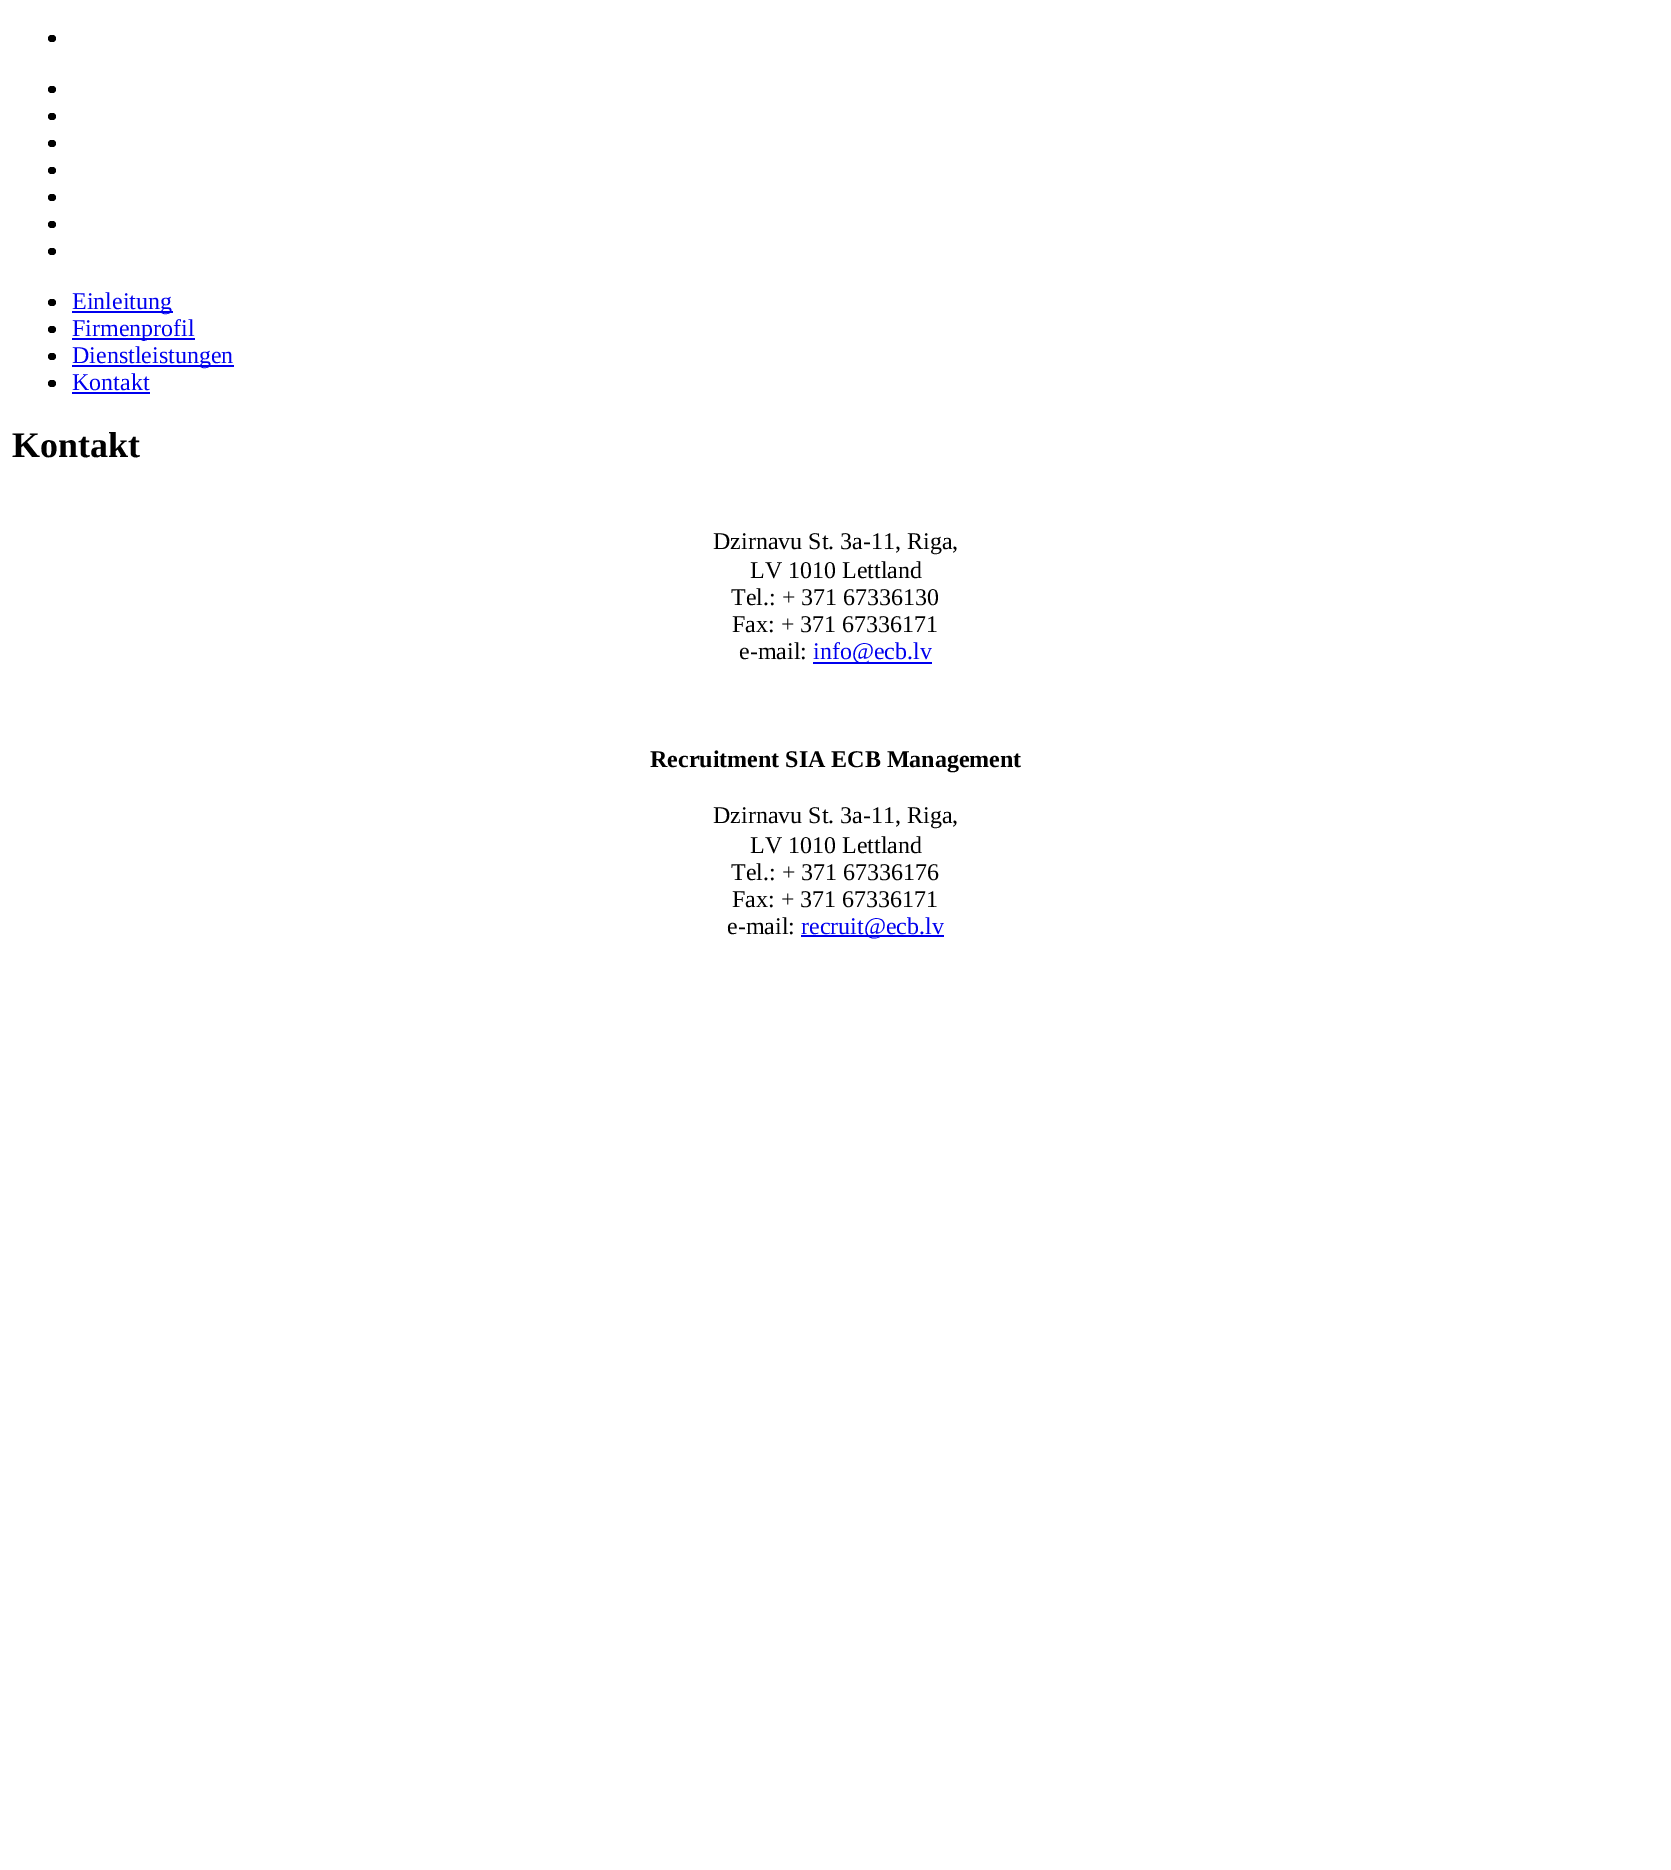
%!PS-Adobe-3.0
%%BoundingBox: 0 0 1671 1870
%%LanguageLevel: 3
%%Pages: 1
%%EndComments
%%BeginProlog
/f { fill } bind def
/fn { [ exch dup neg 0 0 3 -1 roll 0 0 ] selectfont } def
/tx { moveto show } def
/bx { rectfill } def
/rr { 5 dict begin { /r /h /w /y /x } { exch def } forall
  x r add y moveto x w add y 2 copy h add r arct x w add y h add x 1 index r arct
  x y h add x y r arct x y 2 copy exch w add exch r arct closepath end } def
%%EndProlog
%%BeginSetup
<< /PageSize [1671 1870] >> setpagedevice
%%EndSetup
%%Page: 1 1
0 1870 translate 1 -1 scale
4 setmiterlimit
1 setgray
0 0 1671 1870 bx
0 setgray
48 35 8 7 3.5 rr f
48 86 8 7 3.5 rr f
48 113 8 7 3.5 rr f
48 140 8 7 3.5 rr f
48 167 8 7 3.5 rr f
48 194 8 7 3.5 rr f
48 221 8 7 3.5 rr f
48 248 8 7 3.5 rr f
48 299 8 7 3.5 rr f
0 0 0.933 setrgbcolor
72 311 101 2 bx
/LiberationSerif-Regular 24 fn
(Einleitung) 72 309 tx
0 setgray
48 326 8 7 3.5 rr f
0 0 0.933 setrgbcolor
72 338 123 2 bx
(Firmenprofil) 72 336 tx
0 setgray
48 353 8 7 3.5 rr f
0 0 0.933 setrgbcolor
72 365 162 2 bx
(Dienstleistungen) 72 363 tx
0 setgray
48 380 8 7 3.5 rr f
0 0 0.933 setrgbcolor
(Kontakt) 72 390 tx
72 392 78 2 bx
/LiberationSerif-Bold 36 fn
0 setgray
(Kontakt) 12 457 tx
/LiberationSerif-Regular 24 fn
(Dzirnavu St. 3a-11, Riga,) 713 549 tx
(LV 1010 Lettland) 750 578 tx
(Tel.: + 371 67336130) 731 605 tx
(Fax: + 371 67336171) 732 632 tx
(e-mail:) 739 659 tx
0 0 0.933 setrgbcolor
813 662 119 2 bx
(info@ecb.lv) 813 659 tx
/LiberationSerif-Bold 24 fn
0 setgray
(Recruitment SIA ECB Management) 650 767 tx
/LiberationSerif-Regular 24 fn
(Dzirnavu St. 3a-11, Riga,) 713 823 tx
(LV 1010 Lettland) 750 853 tx
(Tel.: + 371 67336176) 731 880 tx
(Fax: + 371 67336171) 732 907 tx
(e-mail:) 727 934 tx
0 0 0.933 setrgbcolor
801 935 143 2 bx
(recruit@ecb.lv) 801 934 tx
showpage
%%EOF
